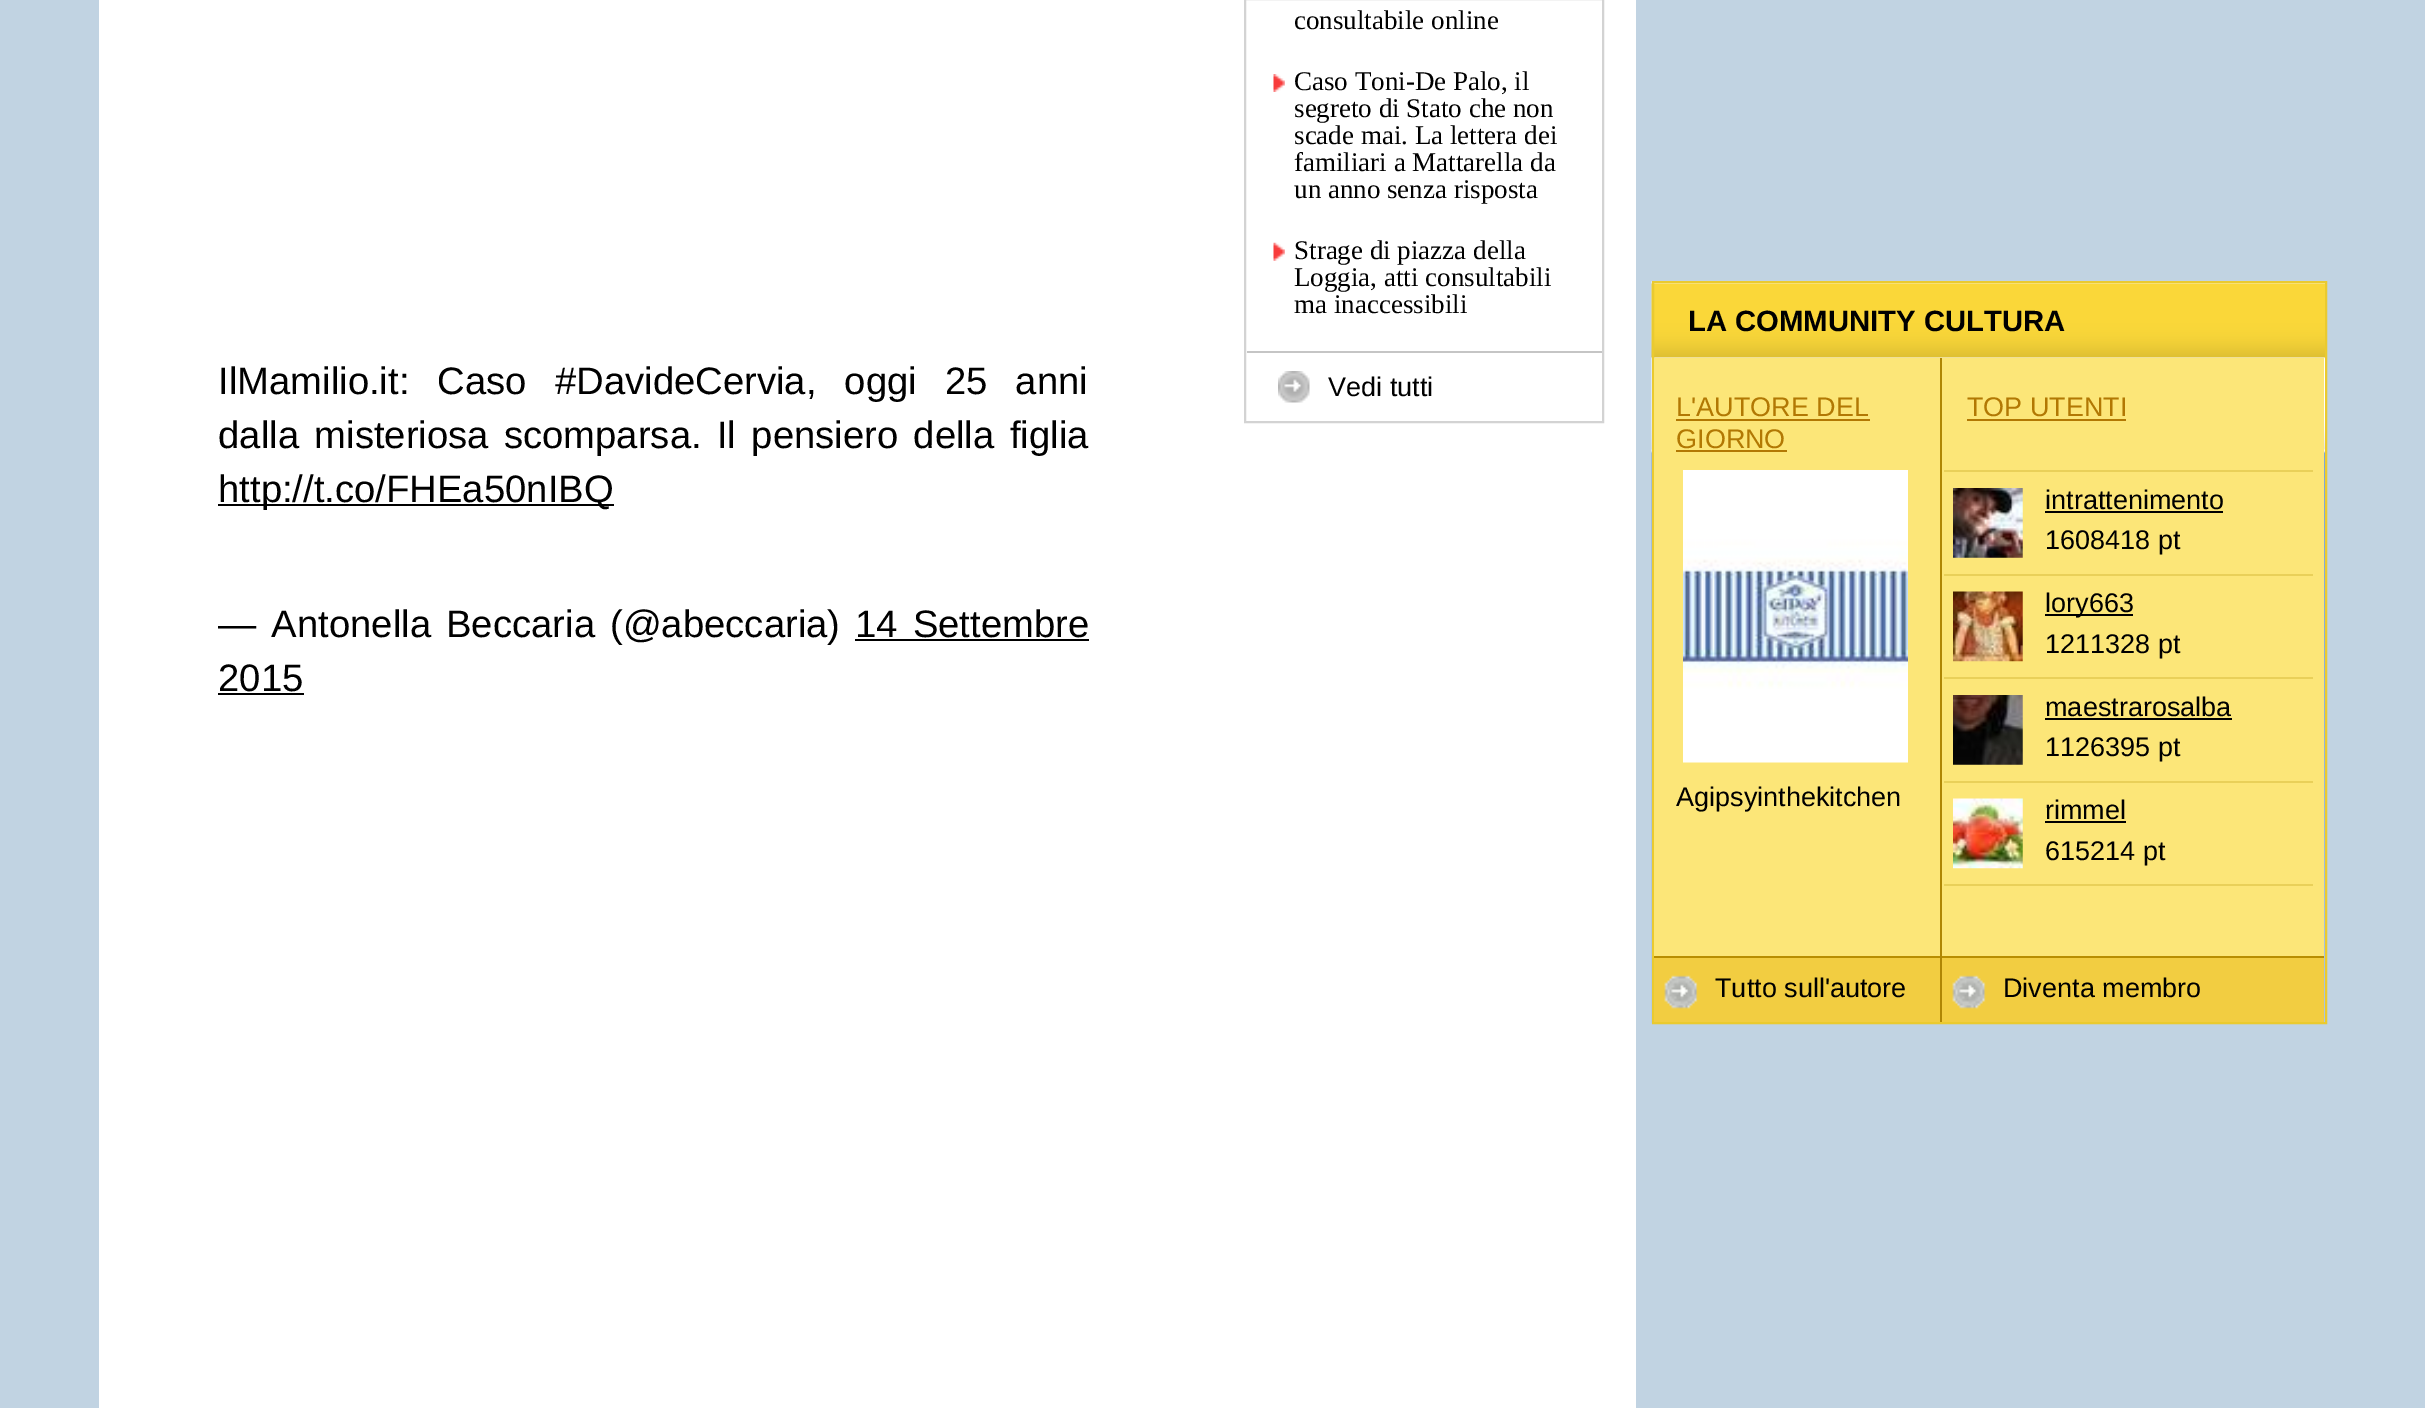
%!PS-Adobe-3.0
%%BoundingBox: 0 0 2425 1408
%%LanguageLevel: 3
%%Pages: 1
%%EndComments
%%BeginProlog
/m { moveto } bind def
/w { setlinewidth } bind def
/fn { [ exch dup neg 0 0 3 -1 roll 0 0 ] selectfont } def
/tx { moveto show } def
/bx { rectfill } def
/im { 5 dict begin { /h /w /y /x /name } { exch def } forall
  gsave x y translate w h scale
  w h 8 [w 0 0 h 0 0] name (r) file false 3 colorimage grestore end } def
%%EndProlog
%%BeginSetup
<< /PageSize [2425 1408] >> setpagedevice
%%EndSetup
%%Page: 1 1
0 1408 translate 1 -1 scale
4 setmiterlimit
0.757 0.827 0.886 setrgbcolor
0 0 2425 1408 bx
1 setgray
99 0 1537 1408 bx
0.827 setgray
2 w
1245 -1 358 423 rectstroke
/LiberationSerif-Regular 27 fn
0 setgray
(consultabile online) 1294 29 tx
(image0.raw) 1273 74 12 18 im
(Caso Toni-De Palo, il) 1294 90 tx
(segreto di Stato che non) 1294 117 tx
(scade mai. La lettera dei) 1294 144 tx
(familiari a Mattarella da) 1294 171 tx
(un anno senza risposta) 1294 198 tx
(image1.raw) 1273 242 12 19 im
(Strage di piazza della) 1294 259 tx
(Loggia, atti consultabili) 1294 286 tx
(ma inaccessibili) 1294 313 tx
(image2.raw) 1278 371 32 32 im
0.773 setgray
1247 351 355 2 bx
/LiberationSans-Regular 27 fn
0 setgray
(Vedi tutti) 1328 396 tx
/LiberationSans-Regular 38.25 fn
218 394 m 17.5 0 32 (IlMamilio.it: Caso #DavideCervia, oggi 25 anni) widthshow
218 448 m 4.75 0 32 (dalla misteriosa scomparsa. Il pensiero della figlia) widthshow
218 504 396 2 bx
(http://t.co/FHEa50nIBQ) 218 502 tx
218 637 m 4.5 0 32 (— Antonella Beccaria \(@abeccaria\)) widthshow
855 637 m 4.5 0 32 (14 Settembre) widthshow
855 639 234 2 bx
(2015) 218 691 tx
218 693 86 2 bx
(image3.raw) 1651 281 674 743 im
0.918 0.792 0.184 setrgbcolor
1653 282 673 741 rectstroke
/LiberationSans-Bold 29.25 fn
0 setgray
(LA COMMUNITY CULTURA) 1688 331 tx
0.988 0.902 0.471 setrgbcolor
1654 358 670 598 bx
0.686 0.525 0.016 setrgbcolor
1940 358 2 664 bx
/LiberationSans-Regular 27 fn
0.698 0.471 0.012 setrgbcolor
(L'AUTORE DEL) 1676 416 tx
1676 419 194 2 bx
(GIORNO) 1676 448 tx
1676 450 111 2 bx
(image4.raw) 1683 470 225 293 im
0 setgray
(Agipsyinthekitchen) 1676 806 tx
0.949 0.804 0.255 setrgbcolor
1654 958 286 64 bx
(image5.raw) 1664 975 34 34 im
0.722 0.557 0.004 setrgbcolor
1654 956 286 2 bx
0 setgray
(Tutto sull'autore) 1715 997 tx
0.698 0.471 0.012 setrgbcolor
(TOP UTENTI) 1967 416 tx
1967 419 159 2 bx
0.914 0.816 0.349 setrgbcolor
1944 470 369 2 bx
1944 574 369 2 bx
(image6.raw) 1953 488 70 70 im
0 setgray
(intrattenimento) 2045 509 tx
2045 511 178 2 bx
(1608418 pt) 2045 549 tx
0.914 0.816 0.349 setrgbcolor
1944 677 369 2 bx
(image7.raw) 1953 591 70 71 im
0 setgray
2045 614 88 2 bx
(lory663) 2045 612 tx
(1211328 pt) 2045 653 tx
0.914 0.816 0.349 setrgbcolor
1944 781 369 2 bx
(image8.raw) 1953 695 70 70 im
0 setgray
(maestrarosalba) 2045 716 tx
2045 718 187 2 bx
(1126395 pt) 2045 756 tx
0.914 0.816 0.349 setrgbcolor
1944 884 369 2 bx
(image9.raw) 1953 798 70 71 im
0 setgray
(rimmel) 2045 819 tx
2045 821 81 2 bx
(615214 pt) 2045 860 tx
0.949 0.804 0.255 setrgbcolor
1942 958 382 64 bx
(image10.raw) 1952 975 34 34 im
0.722 0.557 0.004 setrgbcolor
1942 956 382 2 bx
0 setgray
(Diventa membro) 2003 997 tx
showpage
%%EOF
